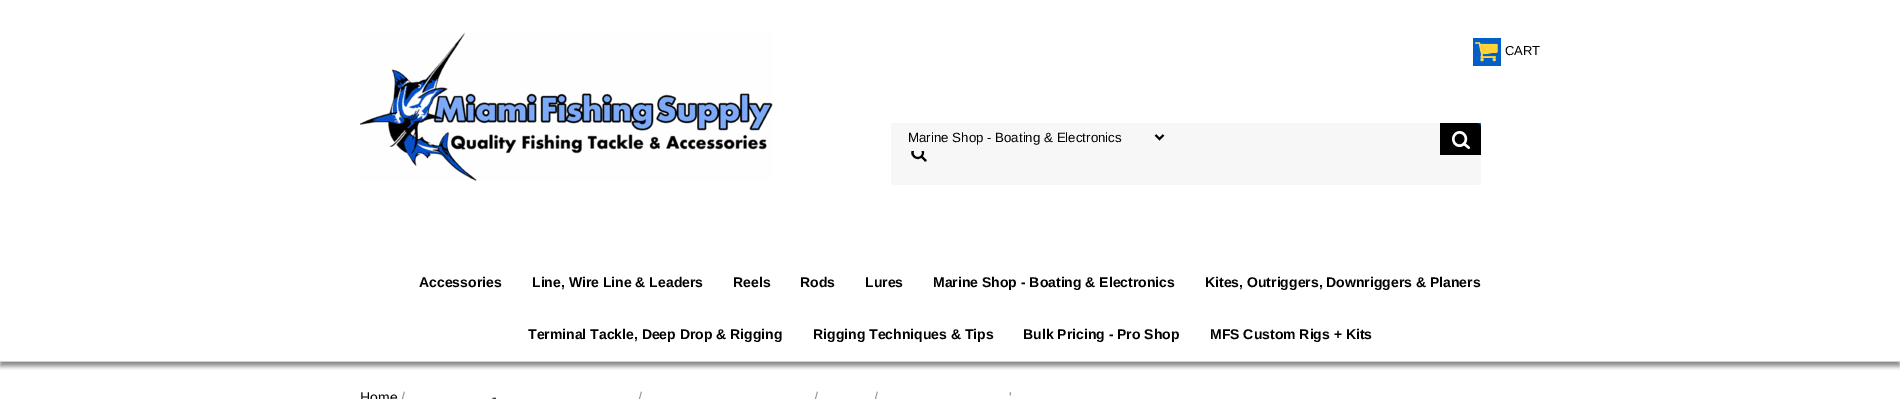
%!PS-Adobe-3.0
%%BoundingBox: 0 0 1900 399
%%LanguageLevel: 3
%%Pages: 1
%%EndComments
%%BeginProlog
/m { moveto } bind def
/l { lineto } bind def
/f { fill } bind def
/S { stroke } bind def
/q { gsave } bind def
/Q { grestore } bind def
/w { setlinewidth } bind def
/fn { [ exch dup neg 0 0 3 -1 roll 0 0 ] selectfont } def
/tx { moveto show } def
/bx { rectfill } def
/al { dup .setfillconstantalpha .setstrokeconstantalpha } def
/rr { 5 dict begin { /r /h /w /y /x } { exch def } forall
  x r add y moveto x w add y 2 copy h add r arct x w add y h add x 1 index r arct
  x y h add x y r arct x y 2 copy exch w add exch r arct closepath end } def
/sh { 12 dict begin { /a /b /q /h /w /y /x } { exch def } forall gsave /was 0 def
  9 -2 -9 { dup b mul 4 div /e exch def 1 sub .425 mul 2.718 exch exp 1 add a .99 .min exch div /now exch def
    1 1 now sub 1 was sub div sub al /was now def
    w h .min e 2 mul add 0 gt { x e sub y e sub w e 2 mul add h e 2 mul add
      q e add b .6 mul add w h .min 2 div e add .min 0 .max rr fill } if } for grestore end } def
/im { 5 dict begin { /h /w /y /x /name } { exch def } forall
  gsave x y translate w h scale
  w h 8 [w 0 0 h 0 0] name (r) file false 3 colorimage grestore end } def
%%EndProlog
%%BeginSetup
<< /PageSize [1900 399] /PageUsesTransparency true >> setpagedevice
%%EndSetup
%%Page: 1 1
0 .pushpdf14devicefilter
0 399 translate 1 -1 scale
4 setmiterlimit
1 setgray
0 0 1900 399 bx
(image0.raw) 360 32 413 149 im
(image1.raw) 1473 38 28 28 im
/LiberationSans-Regular 13 fn
0 setgray
(CART) 1505 55 tx
0.969 setgray
891 123 590 62 3 rr f
(image2.raw) 911 151 16 11 im
891 123 2 2 bx
0 setgray
2 w
1155.5 135 m 1159.5 139 l 1163.5 135 l S
/LiberationSans-Regular 13.3 fn
(Marine Shop - Boating & Electronics) 908 142 tx
(image3.raw) 1440 123 41 32 im
q
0 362 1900 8 rectclip
0 261 1900 105 0 2.5 0.48 sh
Q
0.816 setgray
0 361 1900 1 bx
/LiberationSans-Bold 14 fn
0 setgray
(Accessories) 419 287 tx
(Line, Wire Line & Leaders) 532 287 tx
(Reels) 733 287 tx
(Rods) 800 287 tx
(Lures) 865 287 tx
(Marine Shop - Boating & Electronics) 933 287 tx
(Kites, Outriggers, Downriggers & Planers) 1205 287 tx
(Terminal Tackle, Deep Drop & Rigging) 528 339 tx
(Rigging Techniques & Tips) 813 339 tx
(Bulk Pricing - Pro Shop) 1023 339 tx
(MFS Custom Rigs + Kits) 1210 339 tx
/LiberationSans-Regular 14 fn
(Home) 360 402 tx
0.549 setgray
(/) 401 402 tx
(/) 638 402 tx
(/) 814 402 tx
(/) 874 402 tx
(') 1009 402 tx
0 setgray
(-) 492 402 tx
.poppdf14devicefilter showpage
%%EOF
